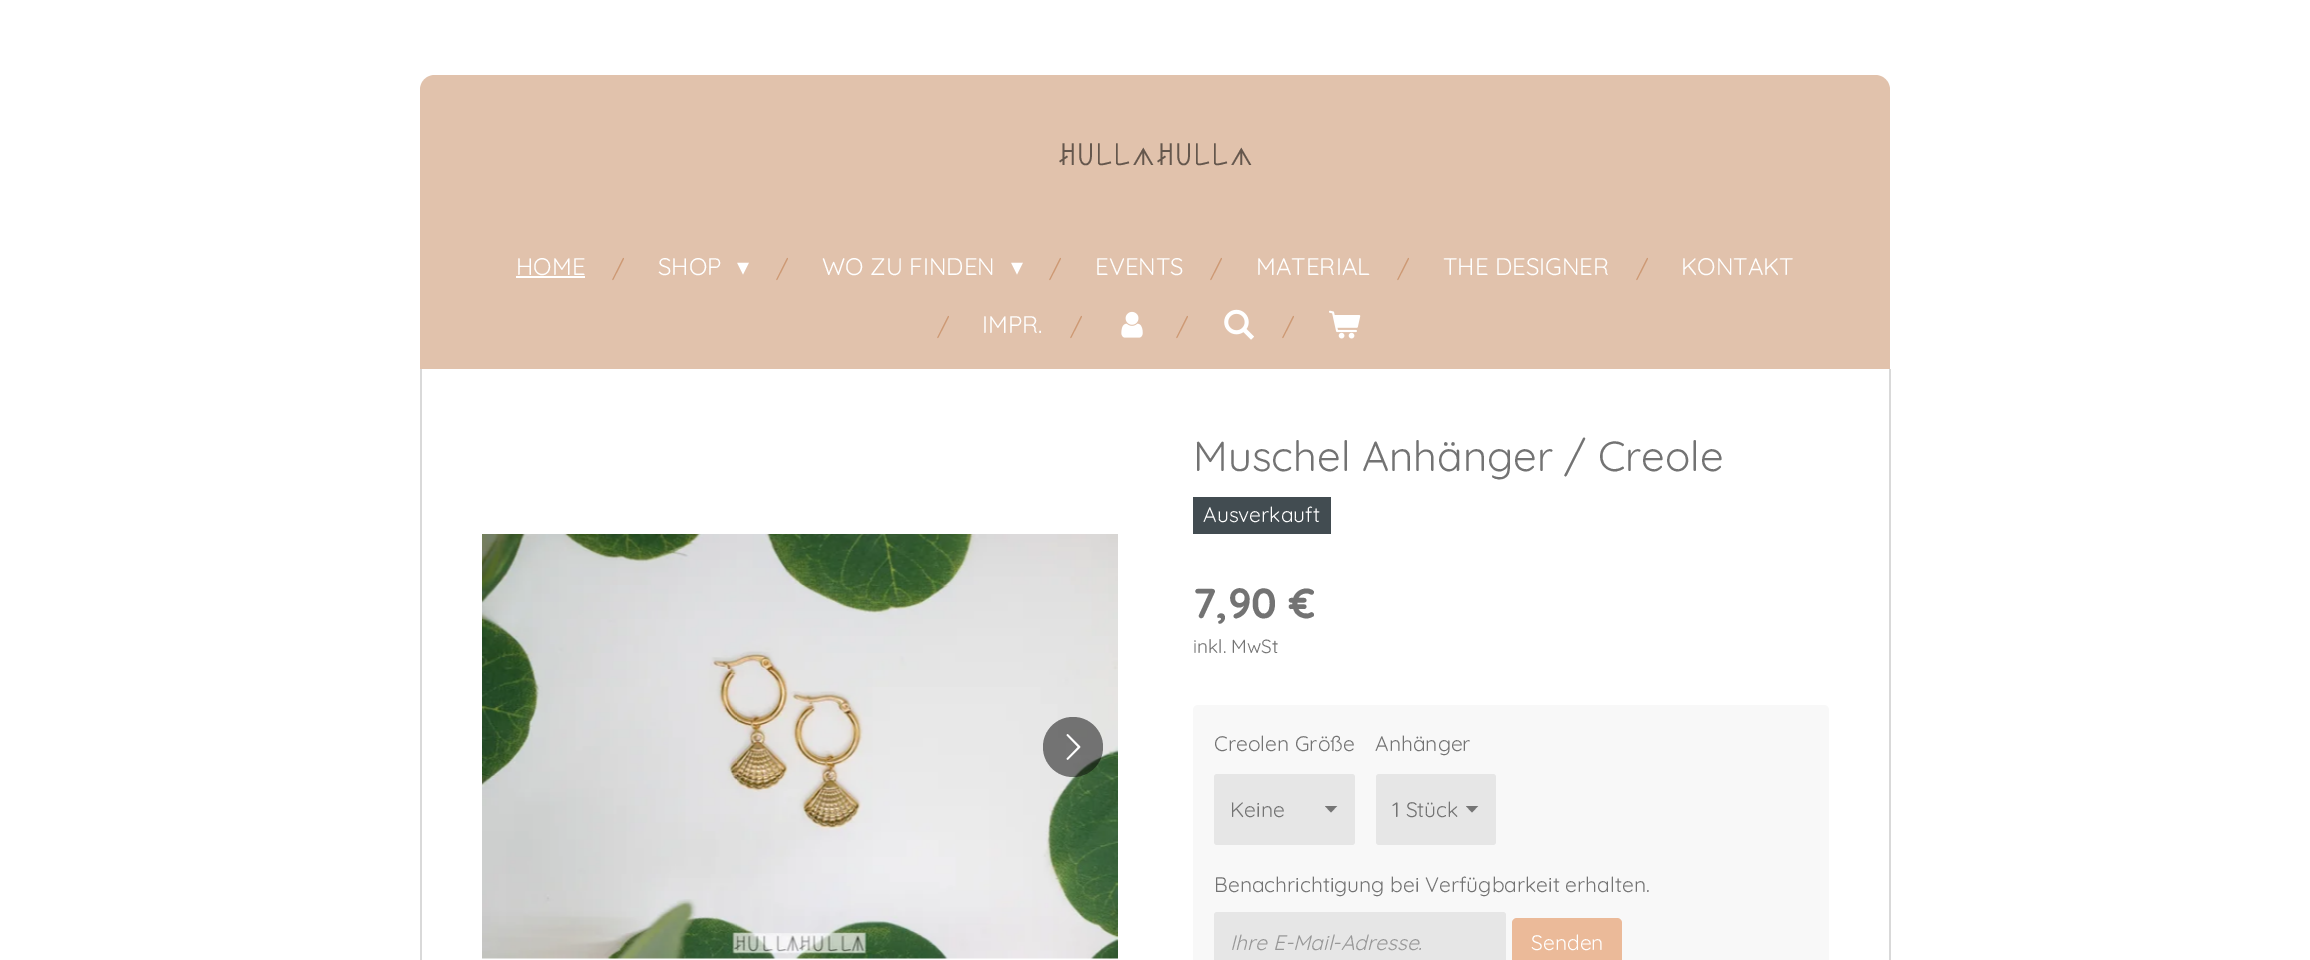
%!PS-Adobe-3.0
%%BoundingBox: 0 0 2310 960
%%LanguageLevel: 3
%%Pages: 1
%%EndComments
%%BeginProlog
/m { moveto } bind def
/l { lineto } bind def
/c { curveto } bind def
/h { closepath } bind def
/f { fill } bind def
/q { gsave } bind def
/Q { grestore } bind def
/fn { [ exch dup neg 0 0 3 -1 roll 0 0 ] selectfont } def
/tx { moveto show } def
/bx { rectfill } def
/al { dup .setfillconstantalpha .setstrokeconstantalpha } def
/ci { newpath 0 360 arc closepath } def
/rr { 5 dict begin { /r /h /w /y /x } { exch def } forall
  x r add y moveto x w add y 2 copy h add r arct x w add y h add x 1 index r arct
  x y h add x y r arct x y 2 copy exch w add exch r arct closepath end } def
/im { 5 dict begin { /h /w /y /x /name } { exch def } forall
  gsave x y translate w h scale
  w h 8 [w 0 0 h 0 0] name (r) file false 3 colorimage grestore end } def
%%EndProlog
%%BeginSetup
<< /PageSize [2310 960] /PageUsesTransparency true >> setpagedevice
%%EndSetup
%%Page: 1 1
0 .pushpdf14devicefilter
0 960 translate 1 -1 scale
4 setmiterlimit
1 setgray
0 0 2310 960 bx
0.882 0.761 0.675 setrgbcolor
435 75 m 1875 75 l 1883.5 75 1890 81.5 1890 90 c 1890 222 l 420 222 l 420 90 l 420 81.5 426.5 75 435 75 c h f
/NuosuSIL-Bold 24 fn
0.396 0.341 0.302 setrgbcolor
(ꎧ꒤꒒꒒) 1057 165 tx
/FreeSans-Regular 24 fn
(ᗑ) 1132 165 tx
/NuosuSIL-Bold 24 fn
(ꎧ꒤꒒꒒) 1155 165 tx
/FreeSans-Regular 24 fn
(ᗑ) 1230 165 tx
0.882 0.761 0.675 setrgbcolor
420 222 1470 147 bx
/Quicksand-Regular 24 fn
1 setgray
(HOME) 516 275 tx
516 276 69 2 bx
0.804 0.6 0.455 setrgbcolor
(/) 612 277 tx
1 setgray
(SHOP) 658 275 tx
/DejaVuSans-Regular 24 fn
(▾) 737 275 tx
/Quicksand-Regular 24 fn
0.804 0.6 0.455 setrgbcolor
(/) 776 277 tx
1 setgray
(WO ZU FINDEN) 822 275 tx
/DejaVuSans-Regular 24 fn
(▾) 1011 275 tx
/Quicksand-Regular 24 fn
0.804 0.6 0.455 setrgbcolor
(/) 1049 277 tx
1 setgray
(EVENTS) 1095 275 tx
0.804 0.6 0.455 setrgbcolor
(/) 1210 277 tx
1 setgray
(MATERIAL) 1256 275 tx
0.804 0.6 0.455 setrgbcolor
(/) 1397 277 tx
1 setgray
(THE DESIGNER) 1443 275 tx
0.804 0.6 0.455 setrgbcolor
(/) 1636 277 tx
1 setgray
(KONTAKT) 1681 275 tx
0.804 0.6 0.455 setrgbcolor
(/) 937 335 tx
1 setgray
(IMPR.) 982 333 tx
0.804 0.6 0.455 setrgbcolor
(/) 1070 335 tx
(image0.raw) 1121 311 22 27 im
(/) 1176 335 tx
(image1.raw) 1224 309 30 31 im
(/) 1282 335 tx
(image2.raw) 1329 310 32 29 im
0.851 setgray
1889 369 2 591 bx
420 369 2 591 bx
/Quicksand-Regular 42 fn
0.451 setgray
(Muschel Anhänger / Creole) 1193 471 tx
0.259 0.298 0.318 setrgbcolor
1193 497 138 37 bx
/Quicksand-Regular 21 fn
1 setgray
(Ausverkauft) 1203 522 tx
(image3.raw) 482 534 636 425 im
0.5 al
0 setgray
1073 747 30 ci f
1 al
(image4.raw) 1066 734 15 26 im
/Quicksand-Bold 42 fn
0.451 setgray
(7,90 €) 1193 618 tx
/Quicksand-Regular 19 fn
(inkl. MwSt) 1193 653 tx
0.973 setgray
1193 705 636 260 5 rr f
/Quicksand-Regular 21 fn
0.451 setgray
(Creolen Größe) 1214 751 tx
0.902 setgray
1214 774 141 71 3 rr f
q
1325 806 13 7 rectclip
0.459 setgray
1331 812.5 m 1324.5 805.5 l 1337.5 805.5 l h f
Q
0.451 setgray
(Keine) 1230 817 tx
(Anhänger) 1375 751 tx
0.902 setgray
1376 774 120 71 3 rr f
q
1466 806 13 7 rectclip
0.459 setgray
1472 812.5 m 1465.5 805.5 l 1478.5 805.5 l h f
Q
0.451 setgray
(1 Stück) 1392 817 tx
(Benachrichtigung bei Verfügbarkeit erhalten.) 1214 892 tx
0.902 setgray
1214 912 292 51 3 rr f
/Quicksand-Italic 21 fn
0.592 setgray
(Ihre E-Mail-Adresse.) 1230 950 tx
0.922 0.729 0.6 setrgbcolor
1512 918 110 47 5 rr f
/Quicksand-Regular 21 fn
1 setgray
(Senden) 1531 950 tx
.poppdf14devicefilter showpage
%%EOF
